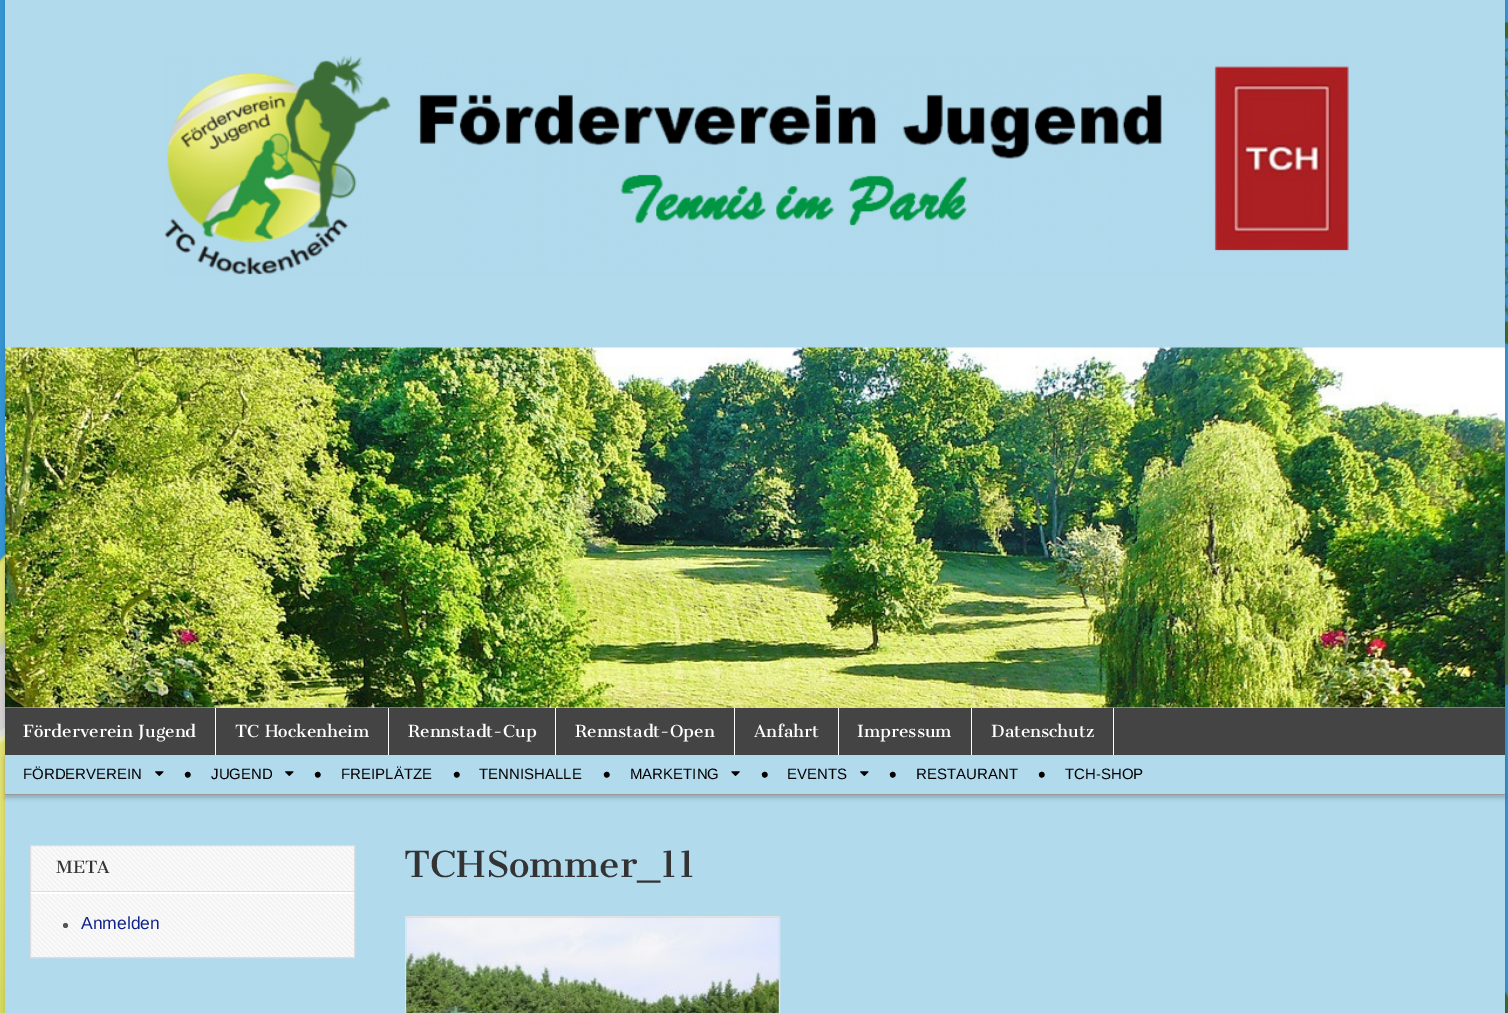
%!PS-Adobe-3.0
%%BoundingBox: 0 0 1508 1013
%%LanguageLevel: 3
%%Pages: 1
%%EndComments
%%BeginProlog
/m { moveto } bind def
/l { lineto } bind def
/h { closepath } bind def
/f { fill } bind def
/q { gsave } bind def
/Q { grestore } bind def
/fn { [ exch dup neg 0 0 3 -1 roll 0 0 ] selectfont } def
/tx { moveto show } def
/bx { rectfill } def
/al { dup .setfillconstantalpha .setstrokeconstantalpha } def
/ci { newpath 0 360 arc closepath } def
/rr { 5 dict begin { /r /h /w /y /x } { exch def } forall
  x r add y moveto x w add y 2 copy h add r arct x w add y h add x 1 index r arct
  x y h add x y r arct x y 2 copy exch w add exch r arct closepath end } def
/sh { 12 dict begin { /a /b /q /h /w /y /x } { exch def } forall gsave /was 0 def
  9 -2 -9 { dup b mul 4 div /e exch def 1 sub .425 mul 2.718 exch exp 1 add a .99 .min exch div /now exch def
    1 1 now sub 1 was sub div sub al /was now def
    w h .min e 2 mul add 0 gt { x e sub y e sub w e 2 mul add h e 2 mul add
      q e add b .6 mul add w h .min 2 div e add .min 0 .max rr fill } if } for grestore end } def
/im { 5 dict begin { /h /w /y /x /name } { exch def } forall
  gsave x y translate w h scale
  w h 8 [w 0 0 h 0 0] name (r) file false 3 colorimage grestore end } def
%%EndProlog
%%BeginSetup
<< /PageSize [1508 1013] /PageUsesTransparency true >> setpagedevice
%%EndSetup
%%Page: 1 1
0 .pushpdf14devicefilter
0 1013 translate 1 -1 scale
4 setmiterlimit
0.216 0.608 0.867 setrgbcolor
0 0 1508 1013 bx
(image0.raw) 0 22 1508 991 im
0 setgray
5 0 1500 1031 0 6 0.2 sh
0.694 0.855 0.929 setrgbcolor
5 0 1500 1013 bx
(image1.raw) 164 55 1185 220 im
(image2.raw) 5 347 1500 361 im
0.267 setgray
5 708 1500 47 bx
q
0 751 m 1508 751 l 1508 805 l 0 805 l h 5 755 m 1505 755 l 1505 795 l 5 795 l h eoclip newpath
0 setgray
5 758 1500 40 0 2 0.2 sh
Q
1 setgray
215 708 1 47 bx
/CantataOne-Regular 16.25 fn
(Förderverein Jugend) 23 737 tx
388 708 1 47 bx
(TC Hockenheim) 235 737 tx
555 708 1 47 bx
(Rennstadt-Cup) 408 737 tx
734 708 1 47 bx
(Rennstadt-Open) 575 737 tx
838 708 1 47 bx
(Anfahrt) 754 737 tx
971 708 1 47 bx
(Impressum) 857 737 tx
1113 708 1 47 bx
(Datenschutz) 991 737 tx
0.6 setgray
5 794 1500 1 bx
/LiberationSans-Regular 15 fn
0 setgray
(FÖRDERVEREIN) 23 779 tx
(image3.raw) 155 771 9 5 im
/LiberationSans-Regular 22 fn
(•) 184 782 tx
/LiberationSans-Regular 15 fn
(JUGEND) 211 779 tx
(image3.raw) 285 771 9 5 im
/LiberationSans-Regular 22 fn
(•) 314 782 tx
/LiberationSans-Regular 15 fn
(FREIPLÄTZE) 341 779 tx
/LiberationSans-Regular 22 fn
(•) 453 782 tx
/LiberationSans-Regular 15 fn
(TENNISHALLE) 479 779 tx
/LiberationSans-Regular 22 fn
(•) 603 782 tx
/LiberationSans-Regular 15 fn
(MARKETING) 630 779 tx
(image4.raw) 731 771 9 5 im
/LiberationSans-Regular 22 fn
(•) 761 782 tx
/LiberationSans-Regular 15 fn
(EVENTS) 787 779 tx
(image3.raw) 860 771 9 5 im
/LiberationSans-Regular 22 fn
(•) 889 782 tx
/LiberationSans-Regular 15 fn
(RESTAURANT) 916 779 tx
/LiberationSans-Regular 22 fn
(•) 1038 782 tx
/LiberationSans-Regular 15 fn
(TCH-SHOP) 1065 779 tx
(image5.raw) 31 846 323 111 im
0.867 setgray
30.5 845.5 324 112 rectstroke
1 setgray
31 848 m 31 894 l 354 894 l 354 848 l 354 892 l 31 892 l h f
0.867 setgray
31 891 323 1 bx
/CantataOne-Regular 16.5 fn
0.2 setgray
(META) 56 873 tx
0.333 setgray
65.5 925.5 2.5 ci f
/LiberationSans-Regular 17.5 fn
0.063 0.133 0.537 setrgbcolor
(Anmelden) 81 929 tx
/CantataOne-Regular 35 fn
0.2 setgray
(TCHSommer_11) 404 877 tx
0.886 setgray
405.5 916.5 374 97 rectstroke
(image6.raw) 406 917 373 96 im
.poppdf14devicefilter showpage
%%EOF
